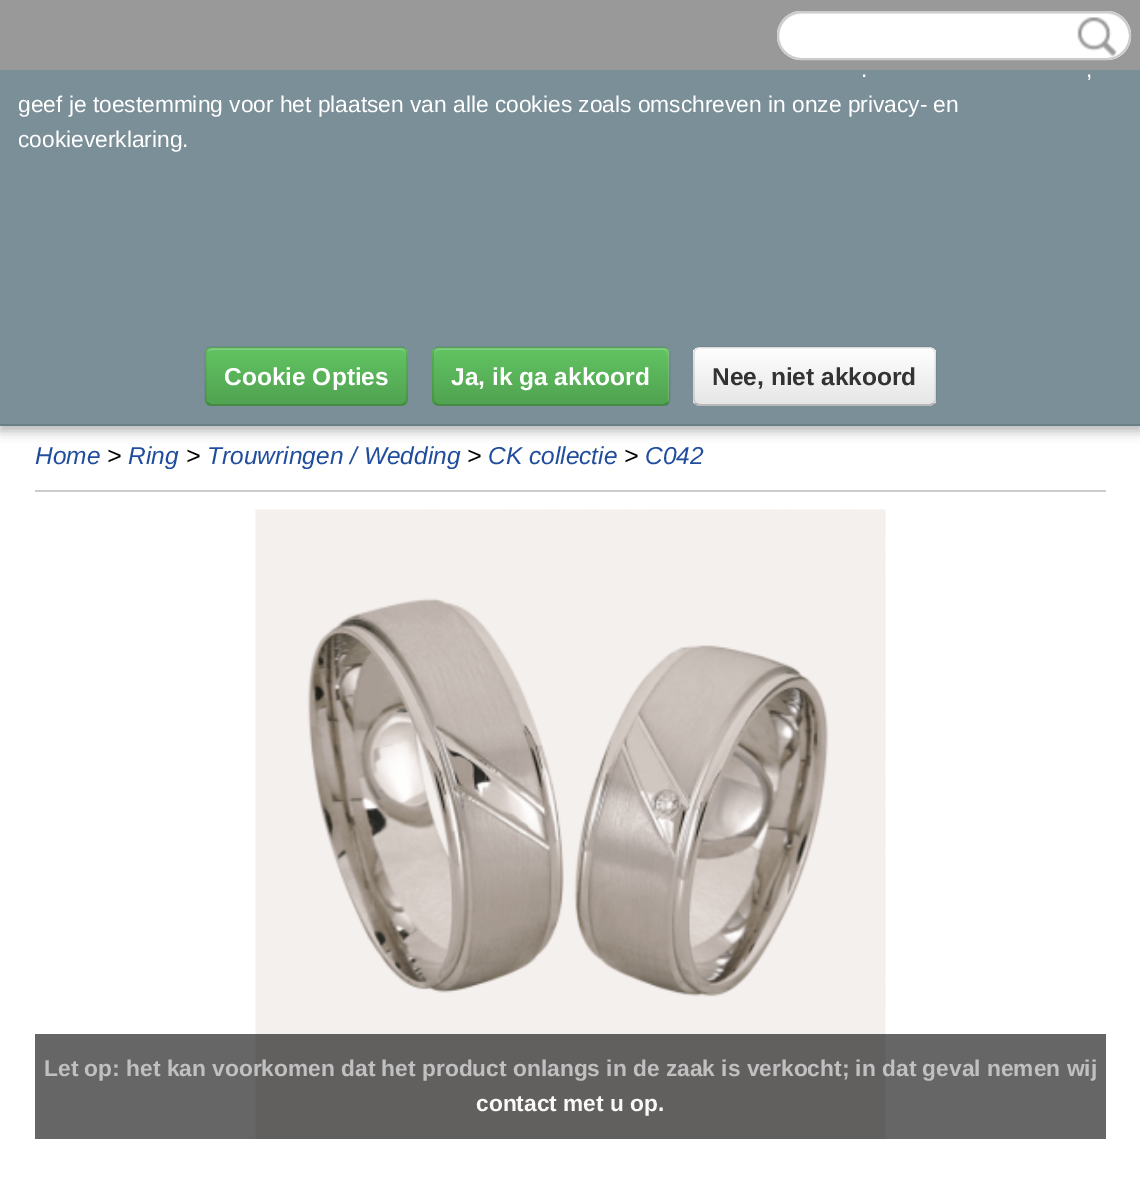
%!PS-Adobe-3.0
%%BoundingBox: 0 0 1140 1204
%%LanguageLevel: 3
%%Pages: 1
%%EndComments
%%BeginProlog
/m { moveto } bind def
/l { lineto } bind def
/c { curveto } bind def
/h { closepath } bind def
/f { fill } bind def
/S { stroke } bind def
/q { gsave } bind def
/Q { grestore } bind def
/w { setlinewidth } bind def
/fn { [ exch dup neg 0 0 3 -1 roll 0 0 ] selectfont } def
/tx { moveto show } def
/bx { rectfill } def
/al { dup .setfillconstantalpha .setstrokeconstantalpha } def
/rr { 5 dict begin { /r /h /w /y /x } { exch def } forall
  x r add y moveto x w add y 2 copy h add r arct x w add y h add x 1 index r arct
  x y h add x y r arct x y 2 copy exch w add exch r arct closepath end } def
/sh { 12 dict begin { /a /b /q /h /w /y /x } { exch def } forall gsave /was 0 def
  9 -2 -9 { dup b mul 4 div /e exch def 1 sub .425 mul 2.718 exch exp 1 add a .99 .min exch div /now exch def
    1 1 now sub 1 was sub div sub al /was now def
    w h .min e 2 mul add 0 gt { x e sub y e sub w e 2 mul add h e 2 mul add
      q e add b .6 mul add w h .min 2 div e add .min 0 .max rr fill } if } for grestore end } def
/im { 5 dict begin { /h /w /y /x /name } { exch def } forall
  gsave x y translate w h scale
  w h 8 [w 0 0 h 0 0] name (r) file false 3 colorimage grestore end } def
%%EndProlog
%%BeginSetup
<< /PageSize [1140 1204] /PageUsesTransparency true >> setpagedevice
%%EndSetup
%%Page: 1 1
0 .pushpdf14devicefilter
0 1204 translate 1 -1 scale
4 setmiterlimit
1 setgray
0 0 1140 1204 bx
0 setgray
0 5 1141 426 0 6 0.3 sh
0.6 setgray
0 0 1140 70 bx
1 setgray
777 11 354 49 24.5 rr f
0.925 setgray
802 14 m 1106 14 l 1119 14 1128 23 1129 36 c 1130 23 1119 12 1106 12 c 802 12 l 789 12 778 23 779 36 c 780 23 789 14 802 14 c h f
0.8 setgray
2 w
778 12 352 47 23.5 rr S
(image0.raw) 1077 17 40 40 im
0.478 0.561 0.596 setrgbcolor
0 70 1140 354 bx
0.412 0.494 0.529 setrgbcolor
0 424 1140 2 bx
/LiberationSans-Regular 22.75 fn
1 setgray
(.) 861 77 tx
(,) 1086 77 tx
(geef je toestemming voor het plaatsen van alle cookies zoals omschreven in onze privacy- en) 18 112 tx
(cookieverklaring.) 18 147 tx
0.357 0.718 0.357 setrgbcolor
205 347 203 59 7 rr f
q
205 347 203 59 7 rr clip newpath
q 205 348 m 408 348 l 408 404 l 205 404 l h clip newpath
<< /ShadingType 2 /ColorSpace /DeviceRGB /Coords [306 348 306 404] /Extend [true true] /Function << /FunctionType 2 /Domain [0 1] /C0 [0.384 0.769 0.384] /C1 [0.318 0.639 0.318] /N 1 >> >> shfill Q
Q
0.2 al
1 setgray
212 350 m 401 350 l 404 350 406 352 406 355 c 406 353 l 406 350 404 348 401 348 c 212 348 l 210 348 207 350 207 352 c 208 351 210 350 212 350 c h f
0.25 al
0 setgray
1.8 w
405 403.5 m 404 404.5 402.5 405 401 405 c 212 405 l 210 405 208.5 404.5 207.5 403.5 c S
0.1 al
207.5 403.5 m 206.5 402 205.5 400.5 205.5 399 c 205.5 353.5 l 205.5 352 206.5 350.5 207.5 349 c 208.5 348 210 347.5 212 347.5 c 401 347.5 l 402.5 347.5 404 348 405 349 c 406 350.5 407 352 407 353.5 c 407 399 l 407 400.5 406 402 405 403.5 c S
/LiberationSans-Bold 24.5 fn
1 al
1 setgray
(Cookie Opties) 224 385 tx
0.357 0.718 0.357 setrgbcolor
432 347 238 59 7 rr f
q
432 347 238 59 7 rr clip newpath
q 432 348 m 670 348 l 670 404 l 432 404 l h clip newpath
<< /ShadingType 2 /ColorSpace /DeviceRGB /Coords [551 348 551 404] /Extend [true true] /Function << /FunctionType 2 /Domain [0 1] /C0 [0.384 0.769 0.384] /C1 [0.318 0.639 0.318] /N 1 >> >> shfill Q
Q
0.2 al
1 setgray
439 350 m 663 350 l 666 350 668 352 668 355 c 668 402 l 669 401 669 400 669 399 c 669 353 l 669 350 667 348 664 348 c 439 348 l 436 348 434 350 434 353 c 434 355 l 434 352 436 350 439 350 c h f
0.25 al
0 setgray
667.5 403.5 m 666.5 404.5 665 405 663 405 c 439 405 l 437.5 405 436 404.5 435 403.5 c S
0.1 al
435 403.5 m 434 402 433 400.5 433 399 c 433 353.5 l 433 352 434 350.5 435 349 c 436 348 437.5 347.5 439 347.5 c 663 347.5 l 665 347.5 666.5 348 667.5 349 c 668.5 350.5 669.5 352 669.5 353.5 c 669.5 399 l 669.5 400.5 668.5 402 667.5 403.5 c S
1 al
1 setgray
(Ja, ik ga akkoord) 451 385 tx
0.961 setgray
693 347 243 59 7 rr f
q
693 347 243 59 7 rr clip newpath
q 693 348 m 936 348 l 936 404 l 693 404 l h clip newpath
<< /ShadingType 2 /ColorSpace /DeviceRGB /Coords [815 348 815 404] /Extend [true true] /Function << /FunctionType 2 /Domain [0 1] /C0 [1 1 1] /C1 [0.902 0.902 0.902] /N 1 >> >> shfill Q
Q
0.2 al
1 setgray
700 350 m 929 350 l 932 350 934 352 934 355 c 934 402 l 935 401 935 400 935 399 c 935 353 l 935 350 933 348 930 348 c 700 348 l 697 348 695 350 695 353 c 695 355 l 695 352 697 350 700 350 c h f
0.25 al
0 setgray
933.5 403.5 m 932.5 404.5 931 405 929 405 c 700 405 l 698.5 405 697 404.5 695.5 403.5 c S
0.1 al
695.5 403.5 m 694.5 402 694 400.5 694 399 c 694 353.5 l 694 352 694.5 350.5 695.5 349 c 697 348 698.5 347.5 700 347.5 c 929 347.5 l 931 347.5 932.5 348 933.5 349 c 934.5 350.5 935.5 352 935.5 353.5 c 935.5 399 l 935.5 400.5 934.5 402 933.5 403.5 c S
1 al
0.2 setgray
(Nee, niet akkoord) 712 385 tx
0.8 setgray
35 490 1071 2 bx
/LiberationSans-Italic 24.5 fn
0.129 0.306 0.612 setrgbcolor
(Home) 35 464 tx
0 setgray
(>) 107 464 tx
0.129 0.306 0.612 setrgbcolor
(Ring) 128 464 tx
0 setgray
(>) 186 464 tx
0.129 0.306 0.612 setrgbcolor
(Trouwringen / Wedding) 207 464 tx
0 setgray
(>) 467 464 tx
0.129 0.306 0.612 setrgbcolor
(CK collectie) 488 464 tx
0 setgray
(>) 624 464 tx
0.129 0.306 0.612 setrgbcolor
(C042) 645 464 tx
(image1.raw) 255 509 631 630 im
0.6 al
0 setgray
35 1034 1071 105 bx
/LiberationSans-Bold 22.75 fn
1 al
0.757 0.753 0.753 setrgbcolor
(Let op: het kan voorkomen dat het product onlangs in de zaak is verkocht; in dat geval nemen wij) 44 1076 tx
0.984 0.976 0.973 setrgbcolor
(contact met u op.) 476 1111 tx
.poppdf14devicefilter showpage
%%EOF
